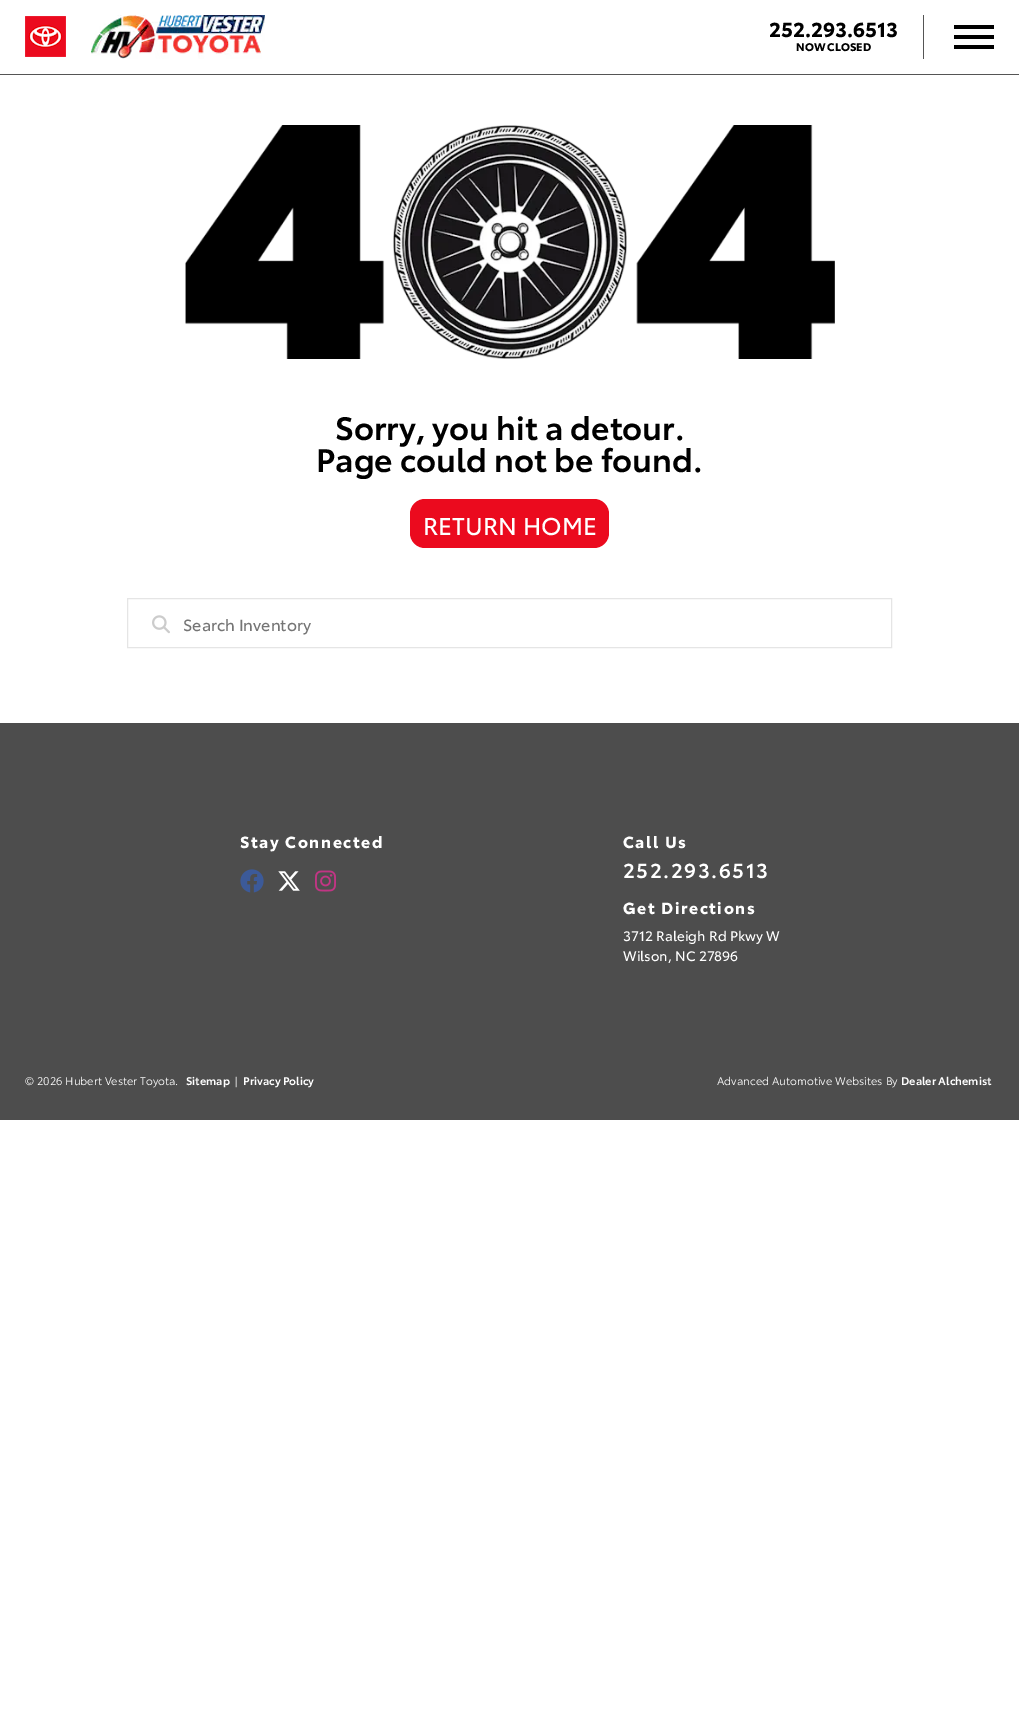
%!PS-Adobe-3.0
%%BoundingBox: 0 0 1019 1710
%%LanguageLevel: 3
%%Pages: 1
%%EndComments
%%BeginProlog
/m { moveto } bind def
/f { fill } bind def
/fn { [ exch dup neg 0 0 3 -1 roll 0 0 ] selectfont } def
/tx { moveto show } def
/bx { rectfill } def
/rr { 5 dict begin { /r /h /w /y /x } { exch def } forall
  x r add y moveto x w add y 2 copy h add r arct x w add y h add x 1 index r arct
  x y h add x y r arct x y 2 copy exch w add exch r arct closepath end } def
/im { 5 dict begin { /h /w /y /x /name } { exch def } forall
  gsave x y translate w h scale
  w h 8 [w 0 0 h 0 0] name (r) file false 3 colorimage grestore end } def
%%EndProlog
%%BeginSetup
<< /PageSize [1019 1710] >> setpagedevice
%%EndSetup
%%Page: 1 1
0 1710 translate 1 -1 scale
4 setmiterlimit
1 setgray
0 0 1019 1710 bx
0.333 setgray
0 74 1019 1 bx
(image0.raw) 25 16 41 41 im
(image1.raw) 91 15 174 44 im
923 15 1 44 bx
/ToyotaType-Bold 20 fn
0 setgray
(252.293.6513) 769 37 tx
/ToyotaType-Bold 11 fn
(NOW CLOSED) 796 51 tx
954 25 40 4 bx
954 35 40 4 bx
954 45 40 4 bx
(image2.raw) 185 125 650 234 im
/ToyotaType-SemiBold 32 fn
(Sorry, you hit a detour.) 335 440 tx
(Page could not be found.) 316 472 tx
0.922 0.039 0.118 setrgbcolor
410 499 199 49 15 rr f
/ToyotaType-Regular 24 fn
1 setgray
(RETURN HOME) 423 535 tx
0.898 setgray
127.5 598.5 764 49 rectstroke
(image3.raw) 152 615 18 19 im
/ToyotaType-Regular 16 fn
0.459 setgray
(Search Inventory) 183 631 tx
0.302 setgray
0 723 1019 397 bx
/ToyotaType-Bold 16 fn
1 setgray
240 848 m 1.6 0 (Stay Connected) ashow
(image4.raw) 240 869 24 24 im
(image5.raw) 278 871 22 20 im
(image6.raw) 315 870 21 22 im
623 848 m 1.6 0 (Call Us) ashow
/ToyotaType-SemiBold 20 fn
623 878 m 1.6 0 (252.293.6513) ashow
/ToyotaType-Bold 16 fn
623 914 m 1.6 0 (Get Directions) ashow
/ToyotaType-Regular 13.6 fn
(3712 Raleigh Rd Pkwy W) 623 941 tx
(Wilson, NC 27896) 623 961 tx
/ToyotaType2-Regular 11 fn
(© 2026 Hubert Vester Toyota.) 25 1085 tx
/ToyotaType-SemiBold 11 fn
(Sitemap) 186 1085 tx
/ToyotaType2-Regular 11 fn
(|) 235 1085 tx
/ToyotaType-SemiBold 11 fn
(Privacy Policy) 243 1085 tx
/ToyotaType2-Regular 11 fn
(Advanced Automotive Websites By) 717 1085 tx
/ToyotaType-SemiBold 11 fn
(Dealer Alchemist) 901 1085 tx
showpage
%%EOF
